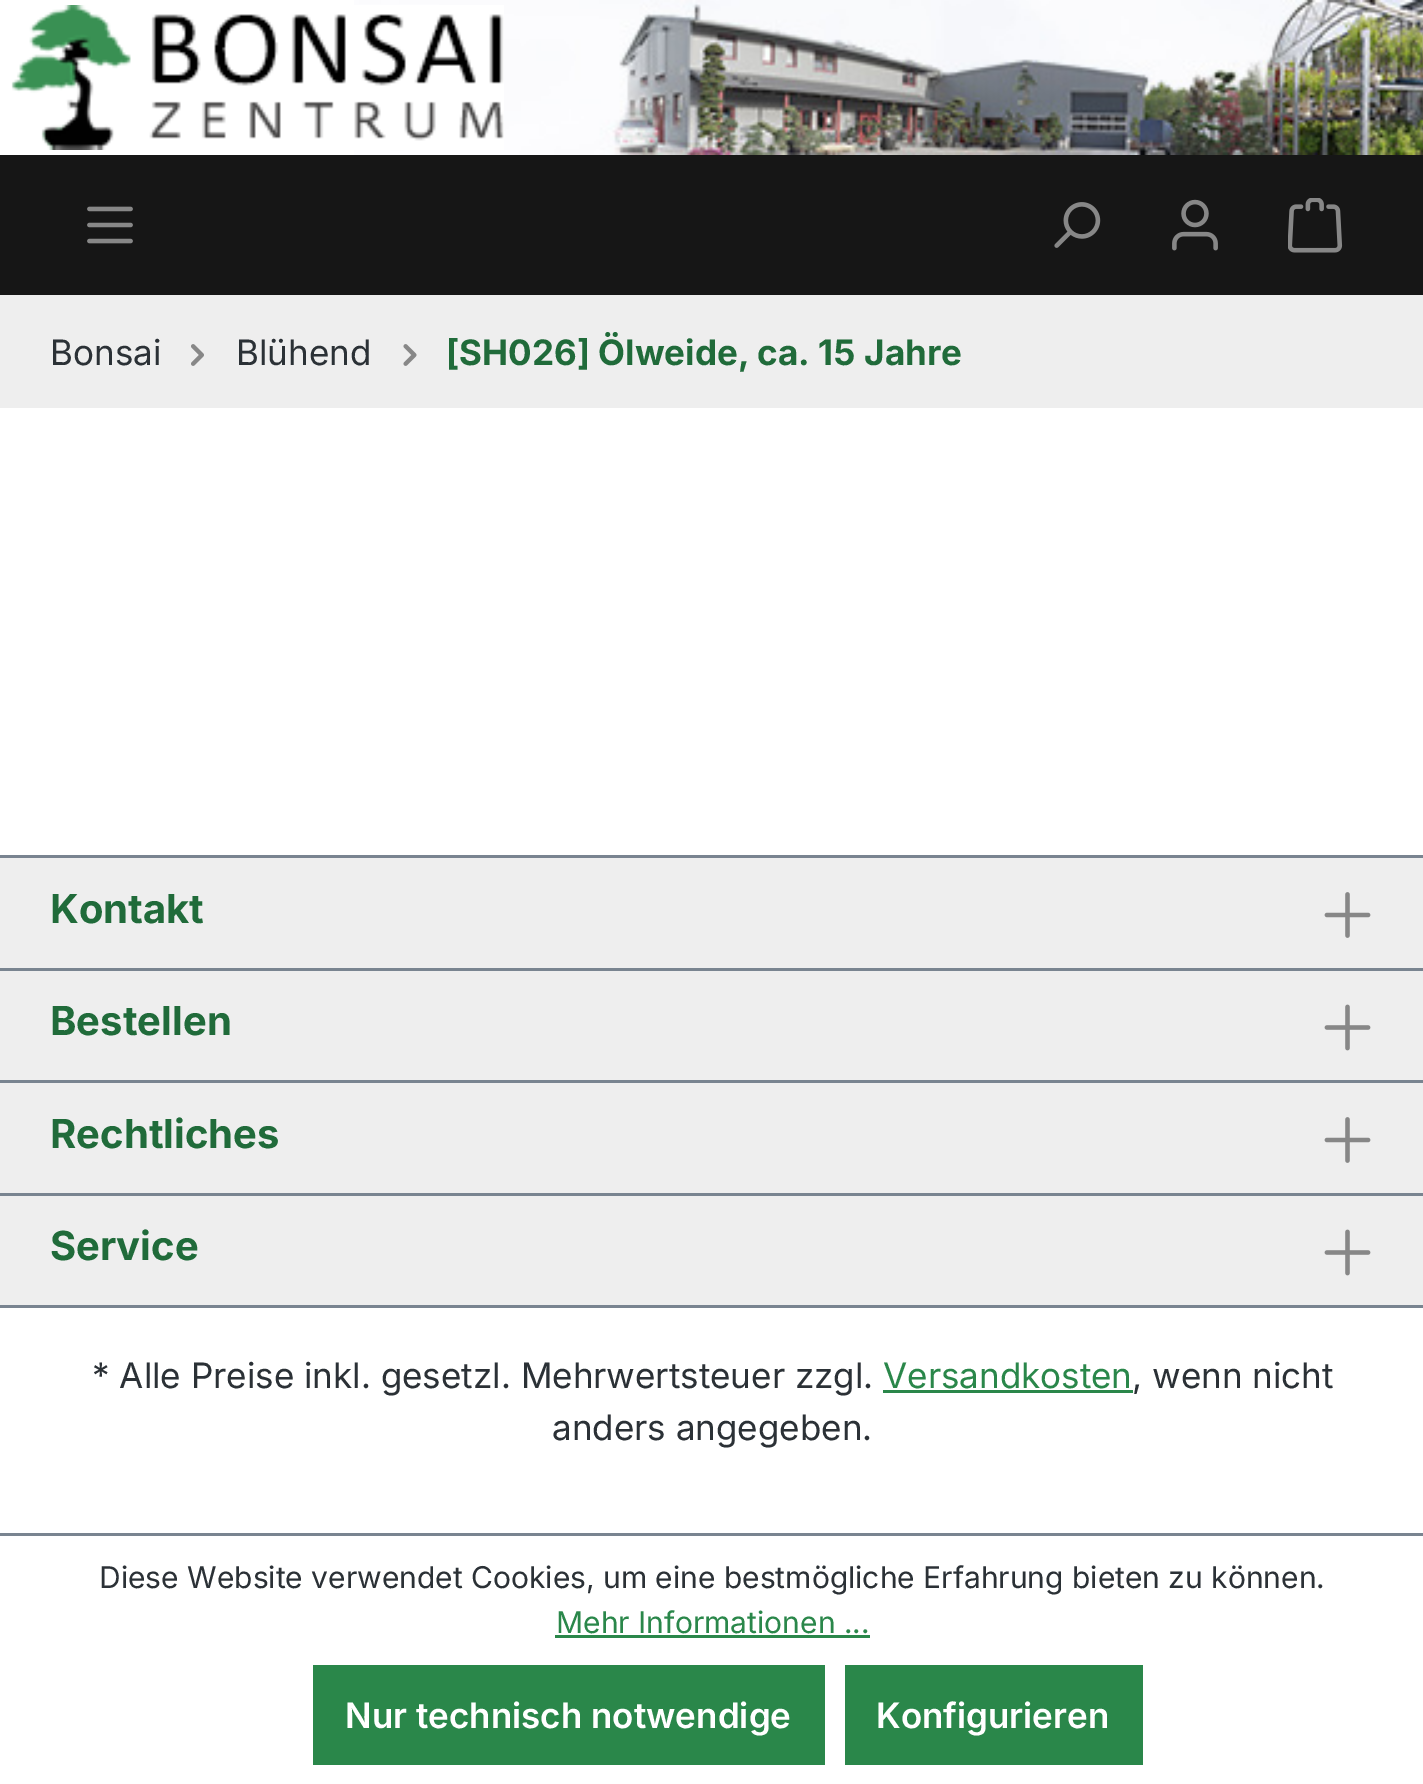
%!PS-Adobe-3.0
%%BoundingBox: 0 0 1423 1784
%%LanguageLevel: 3
%%Pages: 1
%%EndComments
%%BeginProlog
/fn { [ exch dup neg 0 0 3 -1 roll 0 0 ] selectfont } def
/tx { moveto show } def
/bx { rectfill } def
/im { 5 dict begin { /h /w /y /x /name } { exch def } forall
  gsave x y translate w h scale
  w h 8 [w 0 0 h 0 0] name (r) file false 3 colorimage grestore end } def
%%EndProlog
%%BeginSetup
<< /PageSize [1423 1784] >> setpagedevice
%%EndSetup
%%Page: 1 1
0 1784 translate 1 -1 scale
4 setmiterlimit
1 setgray
0 0 1423 1784 bx
(image0.raw) 354 0 1069 155 im
(image1.raw) 11 5 493 145 im
0.086 setgray
0 155 1423 140 bx
(image2.raw) 87 206 46 38 im
(image3.raw) 1054 202 47 46 im
(image4.raw) 1172 199 46 52 im
(image5.raw) 1288 198 55 55 im
0.933 setgray
0 295 1423 113 bx
/Inter-Regular 35 fn
0.169 0.192 0.212 setrgbcolor
(Bonsai) 50 365 tx
(image6.raw) 191 344 13 22 im
(Blühend) 236 365 tx
(image7.raw) 403 344 14 22 im
/Inter-Bold 35 fn
0.125 0.42 0.227 setrgbcolor
([SH026] Ölweide, ca. 15 Jahre) 446 365 tx
0.933 setgray
0 858 1423 447 bx
0.475 0.518 0.565 setrgbcolor
0 855 1423 3 bx
0 968 1423 3 bx
/Inter-Bold 40 fn
0.125 0.42 0.227 setrgbcolor
(Kontakt) 50 923 tx
(image8.raw) 1324 892 47 46 im
0.475 0.518 0.565 setrgbcolor
0 1080 1423 3 bx
0.125 0.42 0.227 setrgbcolor
(Bestellen) 50 1035 tx
(image9.raw) 1324 1004 47 47 im
0.475 0.518 0.565 setrgbcolor
0 1193 1423 3 bx
0.125 0.42 0.227 setrgbcolor
(Rechtliches) 50 1148 tx
(image8.raw) 1324 1117 47 46 im
0.475 0.518 0.565 setrgbcolor
0 1305 1423 3 bx
0.125 0.42 0.227 setrgbcolor
(Service) 50 1260 tx
(image9.raw) 1324 1229 47 47 im
/Inter-Regular 35 fn
0.169 0.192 0.212 setrgbcolor
(* Alle Preise inkl. gesetzl. Mehrwertsteuer zzgl.) 92 1388 tx
0.165 0.529 0.29 setrgbcolor
(Versandkosten) 883 1388 tx
883 1390 250 3 bx
0.169 0.192 0.212 setrgbcolor
(, wenn nicht) 1132 1388 tx
(anders angegeben.) 552 1440 tx
0.475 0.518 0.565 setrgbcolor
0 1533 1423 3 bx
/Inter-Regular 30 fn
0.169 0.192 0.212 setrgbcolor
(Diese Website verwendet Cookies, um eine bestmögliche Erfahrung bieten zu können.) 99 1588 tx
0.165 0.529 0.29 setrgbcolor
(Mehr Informationen ...) 556 1633 tx
555 1635 315 3 bx
313 1665 512 100 bx
/Inter-SemiBold 35 fn
1 setgray
(Nur technisch notwendige) 345 1728 tx
0.165 0.529 0.29 setrgbcolor
845 1665 298 100 bx
1 setgray
(Konfigurieren) 876 1728 tx
showpage
%%EOF
